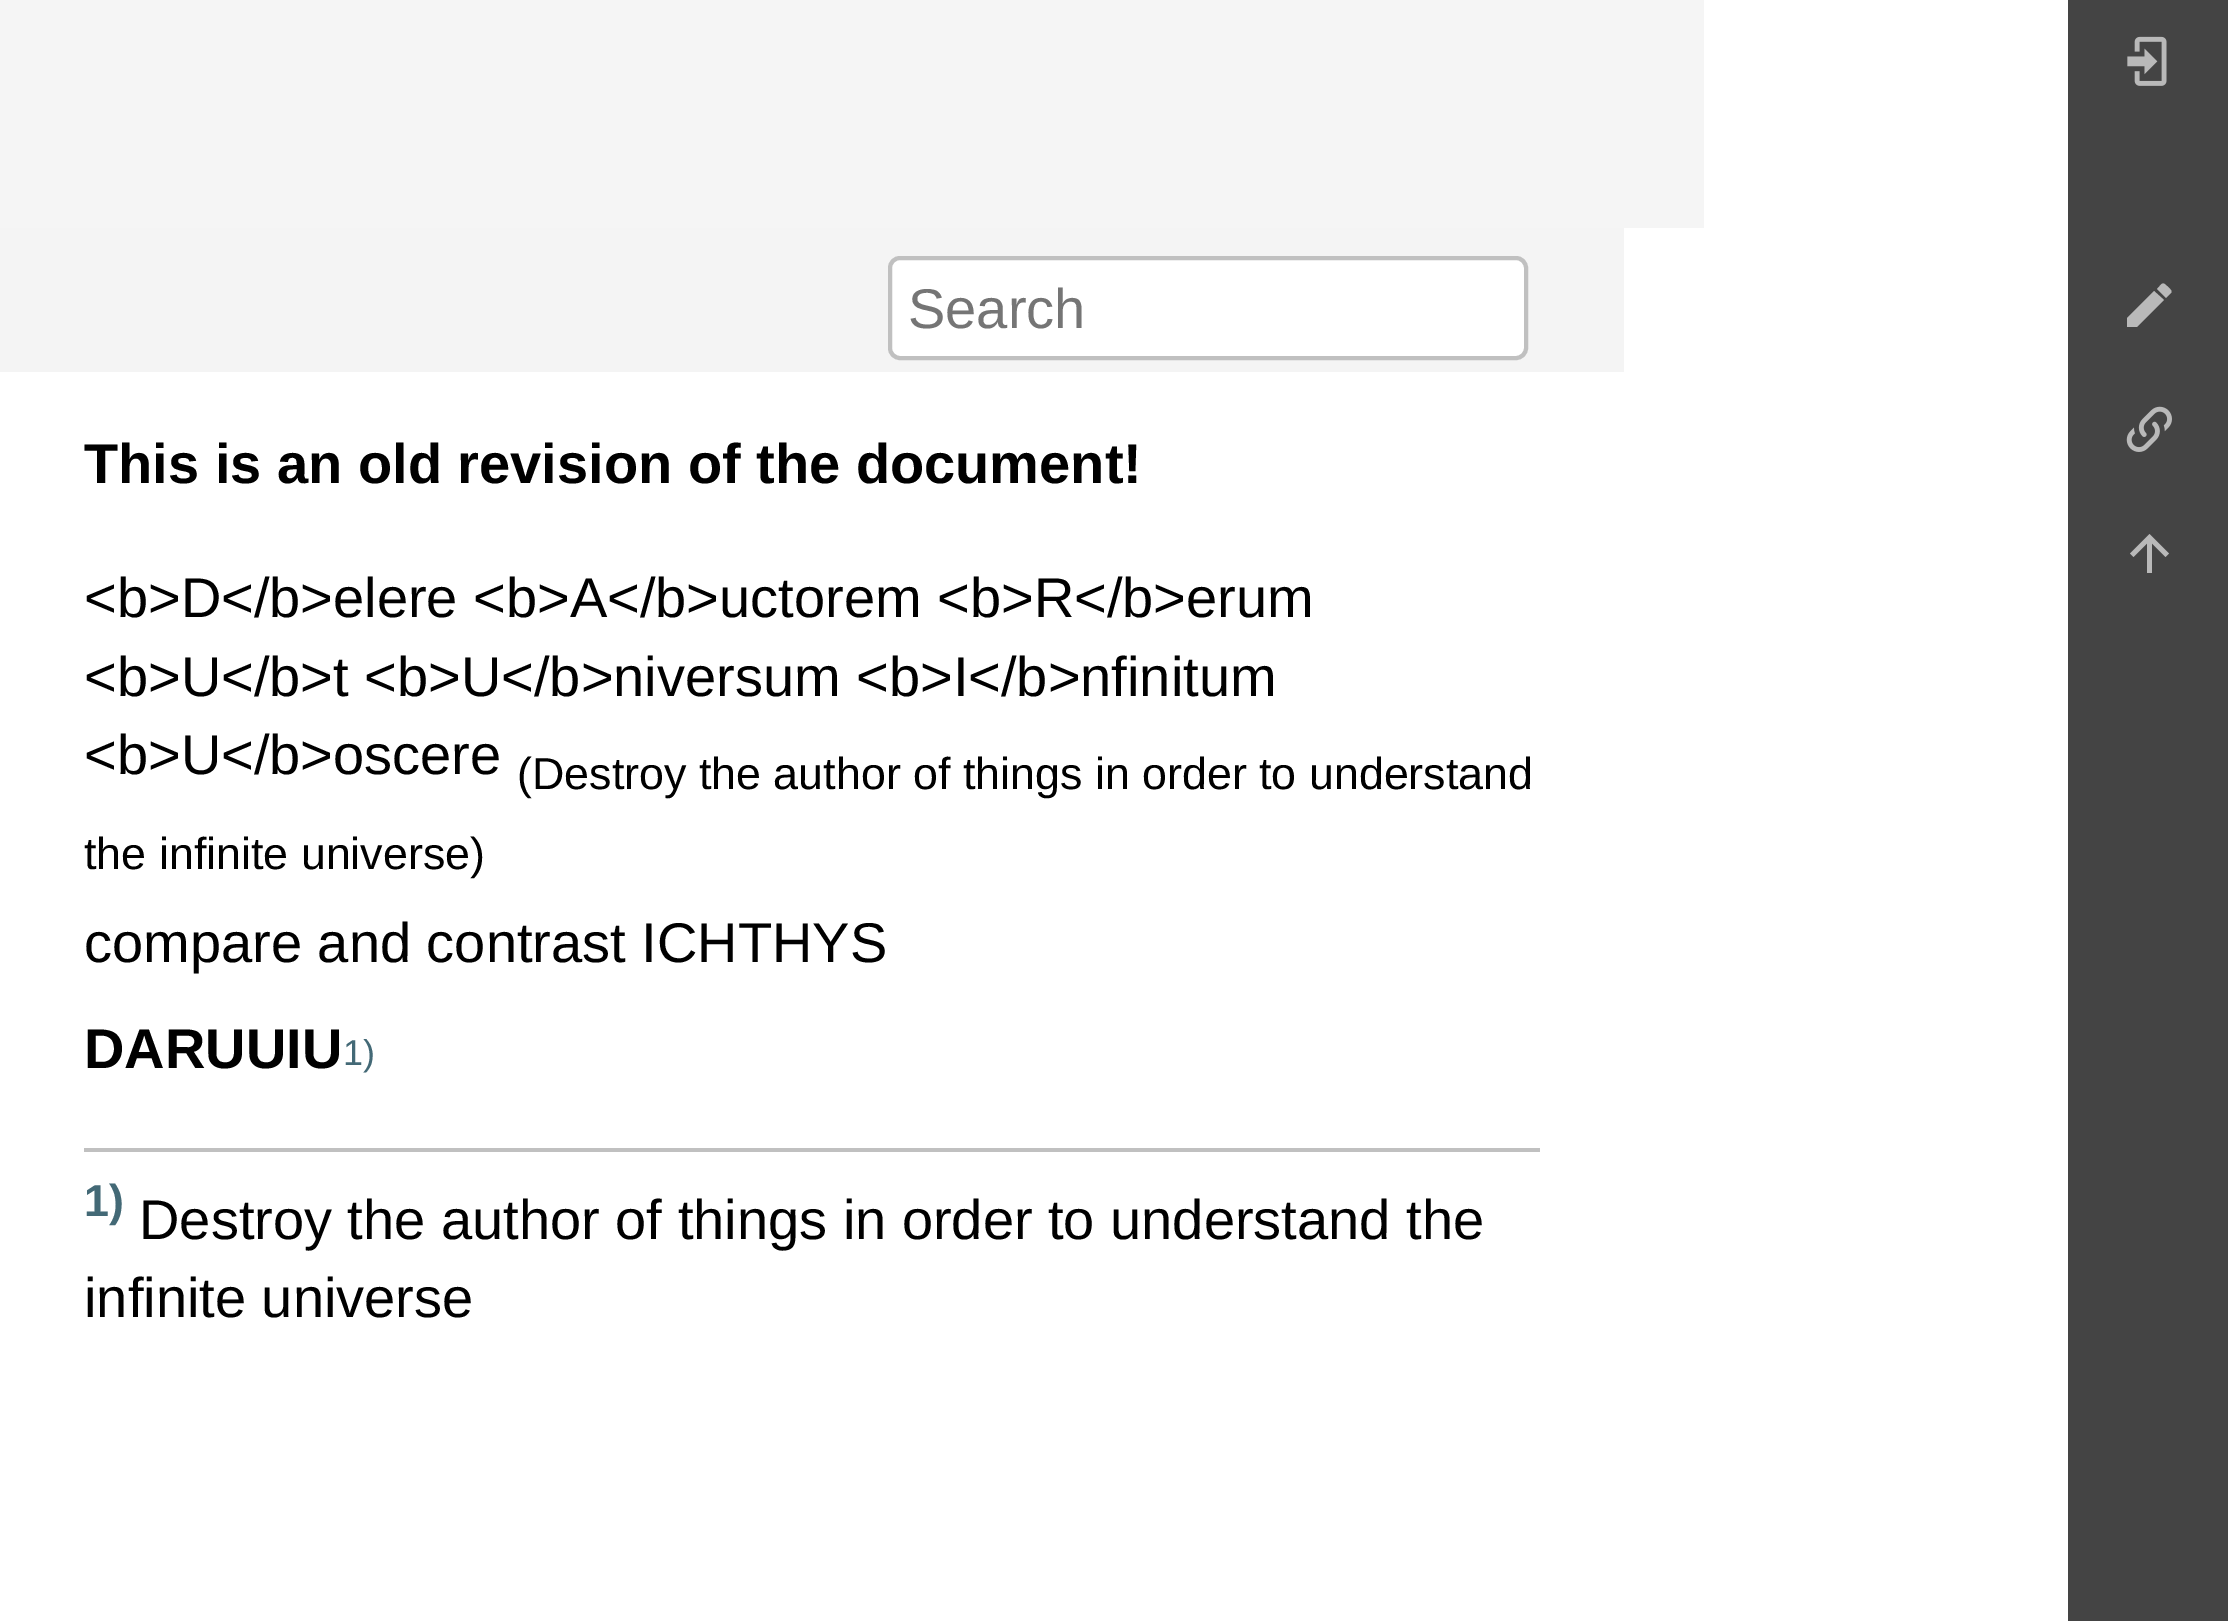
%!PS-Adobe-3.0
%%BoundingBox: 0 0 2228 1621
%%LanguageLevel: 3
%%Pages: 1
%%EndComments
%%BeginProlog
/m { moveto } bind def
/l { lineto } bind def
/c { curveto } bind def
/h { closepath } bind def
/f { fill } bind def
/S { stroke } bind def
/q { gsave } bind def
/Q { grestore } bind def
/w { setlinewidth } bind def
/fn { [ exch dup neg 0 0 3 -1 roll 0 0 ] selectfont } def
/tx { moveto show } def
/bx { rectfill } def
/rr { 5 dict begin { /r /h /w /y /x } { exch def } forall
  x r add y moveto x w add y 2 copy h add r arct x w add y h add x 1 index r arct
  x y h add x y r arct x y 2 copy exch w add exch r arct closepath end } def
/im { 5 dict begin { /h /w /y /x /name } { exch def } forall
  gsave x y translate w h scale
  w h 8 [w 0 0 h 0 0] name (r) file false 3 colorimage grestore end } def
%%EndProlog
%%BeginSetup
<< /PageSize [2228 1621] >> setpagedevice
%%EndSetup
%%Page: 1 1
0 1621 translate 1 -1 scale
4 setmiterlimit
1 setgray
0 0 2228 1621 bx
0.961 setgray
0 0 1704 228 bx
0.957 setgray
0 228 1624 144 bx
1 setgray
890 258 636 100 10 rr q f Q
0.753 setgray
4 w
S
/LiberationSans-Regular 56 fn
0.459 setgray
(Search) 908 328 tx
0.267 setgray
2068 0 160 1621 bx
(image0.raw) 2127 36 40 50 im
0.725 setgray
2171 293 m 2173 291 2169 288 2167 286 c 2162 281 2162 284 2157 289 c 2166 298 l 2127 318 m 2127 327 l 2137 327 l 2164 300 l 2154 291 l h f
(image1.raw) 2126 406 46 46 im
2152 573 m 2147 573 l 2147 543.5 l 2133.5 557 l 2130 553.5 l 2149.5 534 l 2169 553.5 l 2165.5 557 l 2152 543.5 l h f
/LiberationSans-Bold 56 fn
0 setgray
(This is an old revision of the document!) 84 483 tx
/LiberationSans-Regular 56 fn
(<b>D</b>elere <b>A</b>uctorem <b>R</b>erum) 84 617 tx
(<b>U</b>t <b>U</b>niversum <b>I</b>nfinitum) 84 696 tx
(<b>U</b>oscere) 84 774 tx
/LiberationSans-Regular 44.8 fn
(\(Destroy the author of things in order to understand) 517 789 tx
(the infinite universe\)) 84 869 tx
/LiberationSans-Regular 56 fn
(compare and contrast ICHTHYS) 84 962 tx
/LiberationSans-Bold 56 fn
(DARUUIU) 84 1068 tx
/LiberationSans-Regular 36 fn
0.263 0.412 0.463 setrgbcolor
(1\)) 343 1065 tx
0.753 setgray
84 1148 1456 4 bx
/LiberationSans-Bold 44.8 fn
0.263 0.412 0.463 setrgbcolor
(1\)) 84 1216 tx
/LiberationSans-Regular 56 fn
0 setgray
(Destroy the author of things in order to understand the) 139 1239 tx
(infinite universe) 84 1317 tx
showpage
%%EOF
